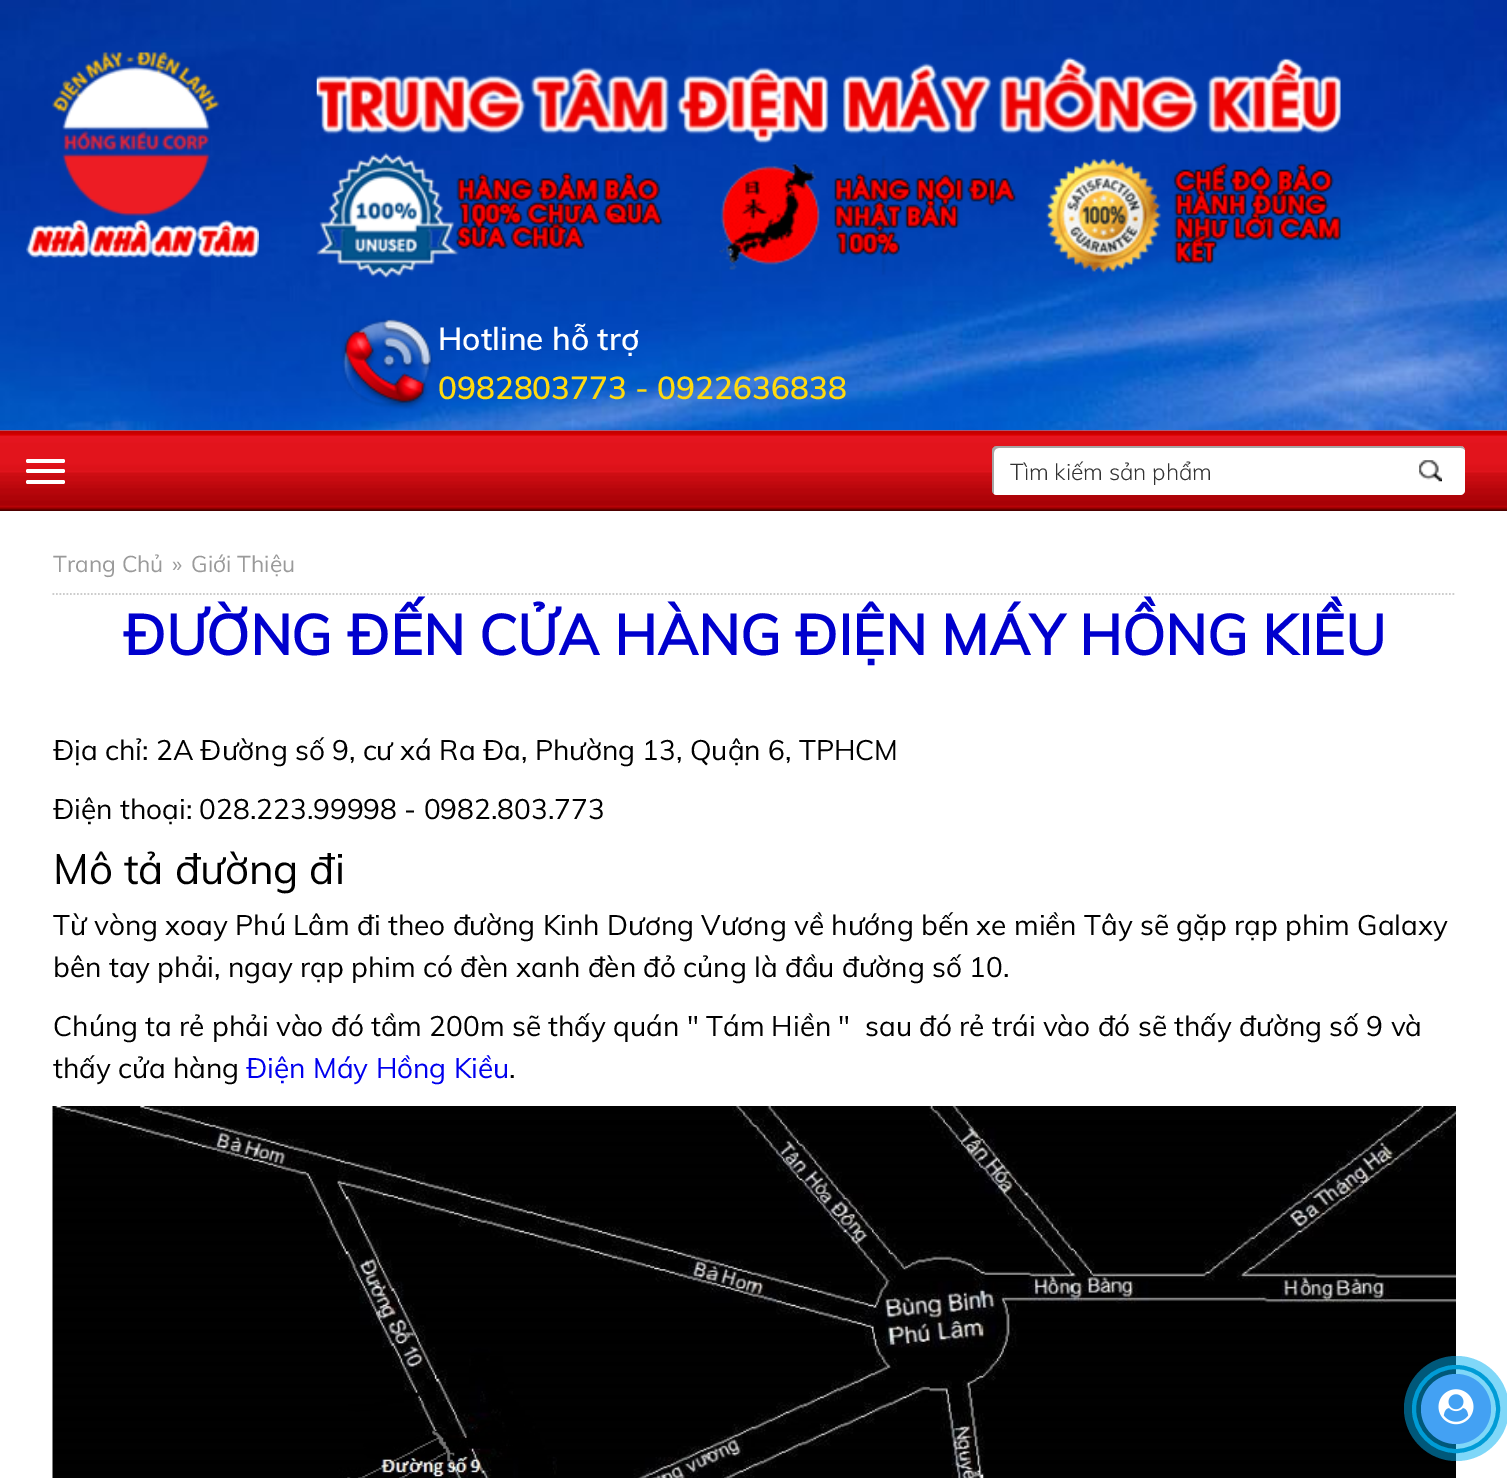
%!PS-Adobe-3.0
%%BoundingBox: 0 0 1507 1478
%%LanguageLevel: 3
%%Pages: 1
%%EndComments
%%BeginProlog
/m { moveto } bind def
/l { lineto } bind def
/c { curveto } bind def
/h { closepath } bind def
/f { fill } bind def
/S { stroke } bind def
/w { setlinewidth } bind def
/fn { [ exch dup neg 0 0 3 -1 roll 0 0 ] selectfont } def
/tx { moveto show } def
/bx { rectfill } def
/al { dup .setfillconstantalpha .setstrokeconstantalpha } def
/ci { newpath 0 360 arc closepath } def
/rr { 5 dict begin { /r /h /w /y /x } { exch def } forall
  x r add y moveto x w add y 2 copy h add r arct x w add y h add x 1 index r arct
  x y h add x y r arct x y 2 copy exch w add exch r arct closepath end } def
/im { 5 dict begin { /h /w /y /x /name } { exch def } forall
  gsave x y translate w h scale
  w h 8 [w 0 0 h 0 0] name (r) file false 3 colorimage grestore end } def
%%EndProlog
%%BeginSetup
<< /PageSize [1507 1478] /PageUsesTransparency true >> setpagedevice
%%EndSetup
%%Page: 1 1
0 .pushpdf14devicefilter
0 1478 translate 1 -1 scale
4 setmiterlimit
1 setgray
0 0 1507 1478 bx
(image0.raw) 0 0 1507 431 im
(image1.raw) 26 52 233 206 im
(image2.raw) 316 57 1025 87 im
(image3.raw) 316 152 1025 127 im
(image4.raw) 340 318 93 91 im
/Muli-SemiBold 31.5 fn
(Hotline hỗ trợ) 438 350 tx
1 0.855 0.059 setrgbcolor
(0982803773 - 0922636838) 438 399 tx
(image5.raw) 0 430 1507 81 im
1 setgray
26 459 39 4 2 rr f
26 469 39 4 2 rr f
26 480 39 4 2 rr f
992 446 473 49 5 rr f
0.35 al
993 493 m 994 494 995 495 997 495 c 1460 495 l 1463 495 1465 493 1465 490 c 1465 451 l 1465 449 1464 447 1462 446 c 1463 450 l 1463 488 l 1463 491 1461 494 1458 494 c 996 494 l h f
0 setgray
999 448 m 1461 448 l 1463 448 1464 449 1465 450 c 1464 447 1462 446 1460 446 c 997 446 l 994 446 992 448 992 451 c 992 490 l 992 492 993 493 994 494 c 994 492 l 994 453 l 994 450 996 448 999 448 c h f
/Muli-Light 22.75 fn
1 al
0.2 setgray
(Tìm kiếm sản phẩm) 1010 480 tx
(image6.raw) 1419 460 23 22 im
0.8 setgray
1.8 w
[1.75 1.75] 0 setdash
52.5 594 m 1456 594 l S
/Muli-Regular 22.75 fn
0.604 setgray
(Trang Chủ) 53 572 tx
(») 172 572 tx
(Giới Thiệu) 191 572 tx
/Muli-Bold 56 fn
0 0 0.804 setrgbcolor
(ĐƯỜNG ĐẾN CỬA HÀNG ĐIỆN MÁY HỒNG KIỀU) 123 655 tx
/Muli-Regular 28 fn
0 setgray
(Địa chỉ: 2A Đường số 9, cư xá Ra Đa, Phường 13, Quận 6, TPHCM) 53 760 tx
(Điện thoại: 028.223.99998 - 0982.803.773) 53 819 tx
/Muli-Regular 42 fn
(Mô tả đường đi) 53 884 tx
/Muli-Regular 28 fn
(Từ vòng xoay Phú Lâm đi theo đường Kinh Dương Vương về hướng bến xe miền Tây sẽ gặp rạp phim Galaxy) 53 935 tx
(bên tay phải, ngay rạp phim có đèn xanh đèn đỏ củng là đầu đường số 10.) 53 977 tx
(Chúng ta rẻ phải vào đó tầm 200m sẽ thấy quán " Tám Hiền "  sau đó rẻ trái vào đó sẽ thấy đường số 9 và) 53 1036 tx
(thấy cửa hàng) 53 1078 tx
0 0 0.933 setrgbcolor
(Điện Máy Hồng Kiều) 246 1078 tx
0 setgray
(.) 509 1078 tx
(image7.raw) 52 1106 1404 372 im
0 0.537 0.725 setrgbcolor
4 w
[] 0 setdash
1456 1409 42 ci S
0.5 al
0 0.686 0.949 setrgbcolor
1456.5 1408.5 52.5 ci f
1 al
0.263 0.631 0.953 setrgbcolor
1456 1409 35 ci f
(image8.raw) 1438 1389 36 36 im
.poppdf14devicefilter showpage
%%EOF
